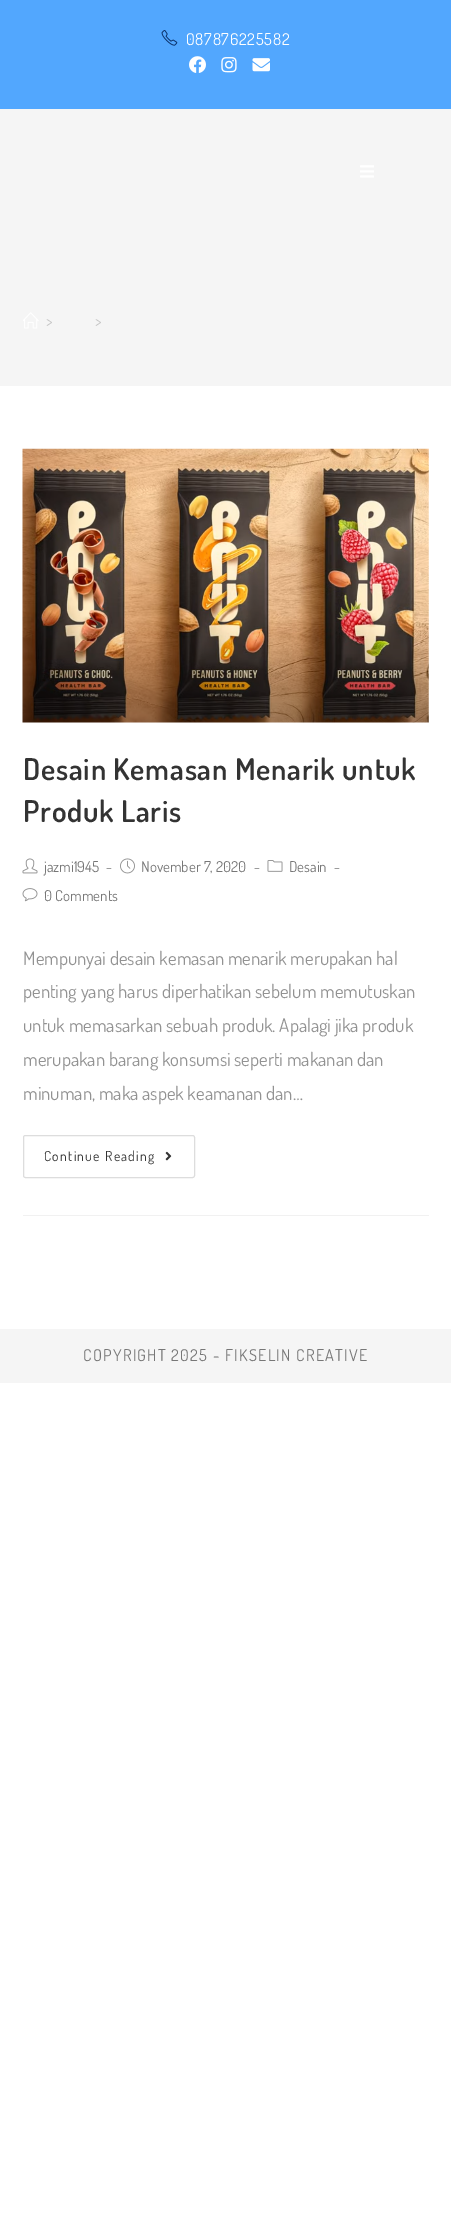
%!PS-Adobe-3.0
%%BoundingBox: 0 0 451 2222
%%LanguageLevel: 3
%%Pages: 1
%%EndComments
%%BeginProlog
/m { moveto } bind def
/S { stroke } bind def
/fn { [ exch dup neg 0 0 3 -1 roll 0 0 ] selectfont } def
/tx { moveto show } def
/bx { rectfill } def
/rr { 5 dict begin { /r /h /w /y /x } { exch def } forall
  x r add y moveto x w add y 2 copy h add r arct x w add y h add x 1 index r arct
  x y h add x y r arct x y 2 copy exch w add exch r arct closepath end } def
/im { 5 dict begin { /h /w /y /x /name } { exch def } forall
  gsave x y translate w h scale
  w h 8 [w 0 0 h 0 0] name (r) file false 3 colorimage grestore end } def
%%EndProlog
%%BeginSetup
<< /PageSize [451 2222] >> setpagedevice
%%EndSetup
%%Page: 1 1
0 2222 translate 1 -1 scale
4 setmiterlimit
1 setgray
0 0 451 2222 bx
0.322 0.655 0.996 setrgbcolor
0 0 451 109 bx
(image0.raw) 161 30 17 16 im
/Dosis-Regular 16.25 fn
1 setgray
186 45 m 0.75 0 (087876225582) ashow
(image1.raw) 189 56 17 17 im
(image2.raw) 221 57 16 16 im
(image3.raw) 252 58 18 14 im
0.961 setgray
0 109 451 277 bx
(image4.raw) 360 165 14 13 im
(image5.raw) 23 312 16 17 im
0.776 setgray
(>) 46 327 tx
(>) 95 327 tx
0.945 setgray
23 1215 406 1 bx
(image6.raw) 22 448 407 275 im
/Dosis-SemiBold 30 fn
0.2 setgray
23 780 m 0.75 0 (Desain Kemasan Menarik untuk) ashow
23 822 m 0.75 0 (Produk Laris) ashow
(image7.raw) 22 858 16 16 im
/Dosis-Regular 15 fn
0.467 setgray
(jazmi1945) 44 872 tx
(-) 106 872 tx
(image8.raw) 120 858 15 16 im
(November 7, 2020) 141 872 tx
(-) 254 872 tx
(image9.raw) 267 860 16 12 im
(Desain) 289 872 tx
(-) 334 872 tx
(image10.raw) 22 888 16 14 im
(0 Comments) 44 901 tx
/Dosis-Regular 18.75 fn
0.573 setgray
(Mempunyai desain kemasan menarik merupakan hal) 23 965 tx
(penting yang harus diperhatikan sebelum memutuskan) 23 998 tx
(untuk memasarkan sebuah produk. Apalagi jika produk) 23 1032 tx
(merupakan barang konsumsi seperti makanan dan) 23 1066 tx
(minuman, maka aspek keamanan dan…) 23 1100 tx
0.867 setgray
23.5 1135.5 171 42 2 rr S
/Dosis-Regular 13.75 fn
0.2 setgray
44 1161 m 1.25 0 (Continue Reading) ashow
(image11.raw) 165 1151 7 10 im
0.961 setgray
0 1329 451 54 bx
/Dosis-Regular 16.25 fn
0.467 setgray
83 1361 m 1.25 0 (COPYRIGHT 2025 - FIKSELIN CREATIVE) ashow
showpage
%%EOF
